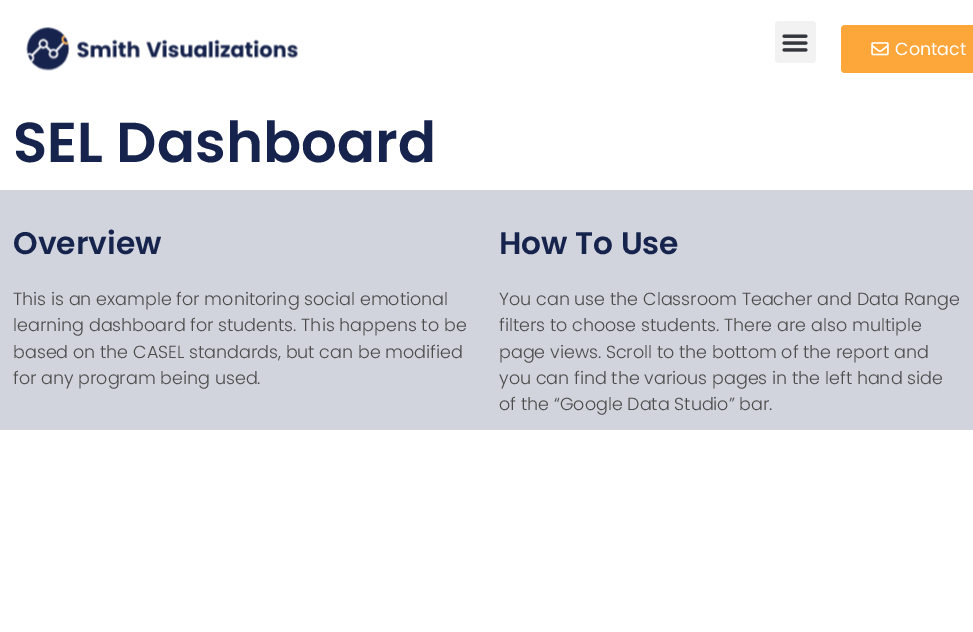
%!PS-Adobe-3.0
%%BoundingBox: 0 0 973 632
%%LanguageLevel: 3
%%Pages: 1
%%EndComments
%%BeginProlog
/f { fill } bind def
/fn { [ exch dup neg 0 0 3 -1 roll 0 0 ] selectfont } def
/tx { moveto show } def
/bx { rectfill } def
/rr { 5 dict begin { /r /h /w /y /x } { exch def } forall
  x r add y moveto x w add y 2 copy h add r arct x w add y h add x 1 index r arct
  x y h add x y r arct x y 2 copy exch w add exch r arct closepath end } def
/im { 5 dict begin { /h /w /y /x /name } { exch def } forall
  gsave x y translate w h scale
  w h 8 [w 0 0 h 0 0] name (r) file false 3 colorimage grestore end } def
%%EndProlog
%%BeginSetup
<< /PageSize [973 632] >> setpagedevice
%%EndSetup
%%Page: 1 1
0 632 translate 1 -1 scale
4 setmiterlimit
1 setgray
0 0 973 632 bx
(image0.raw) 26 27 272 44 im
0.949 setgray
775 21 41 42 4 rr f
(image1.raw) 782 34 26 18 im
0.992 0.651 0.227 setrgbcolor
841 25 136 48 4 rr f
(image2.raw) 871 42 18 14 im
/Poppins-Regular 17.5 fn
1 setgray
(Contact) 895 55 tx
/Poppins-SemiBold 56.25 fn
0.086 0.137 0.298 setrgbcolor
(SEL Dashboard) 13 162 tx
0.82 0.831 0.863 setrgbcolor
0 190 973 240 bx
/Poppins-SemiBold 31.25 fn
0.086 0.137 0.298 setrgbcolor
(Overview) 13 254 tx
/Poppins-Light 17.5 fn
0.294 0.298 0.298 setrgbcolor
(This is an example for monitoring social emotional) 13 305 tx
(learning dashboard for students. This happens to be) 13 331 tx
(based on the CASEL standards, but can be modified) 13 358 tx
(for any program being used.) 13 384 tx
/Poppins-SemiBold 31.25 fn
0.086 0.137 0.298 setrgbcolor
(How To Use) 499 254 tx
/Poppins-Light 17.5 fn
0.294 0.298 0.298 setrgbcolor
(You can use the Classroom Teacher and Data Range) 499 305 tx
(filters to choose students. There are also multiple) 499 331 tx
(page views. Scroll to the bottom of the report and) 499 358 tx
(you can find the various pages in the left hand side) 499 384 tx
(of the “Google Data Studio” bar.) 499 410 tx
showpage
%%EOF
